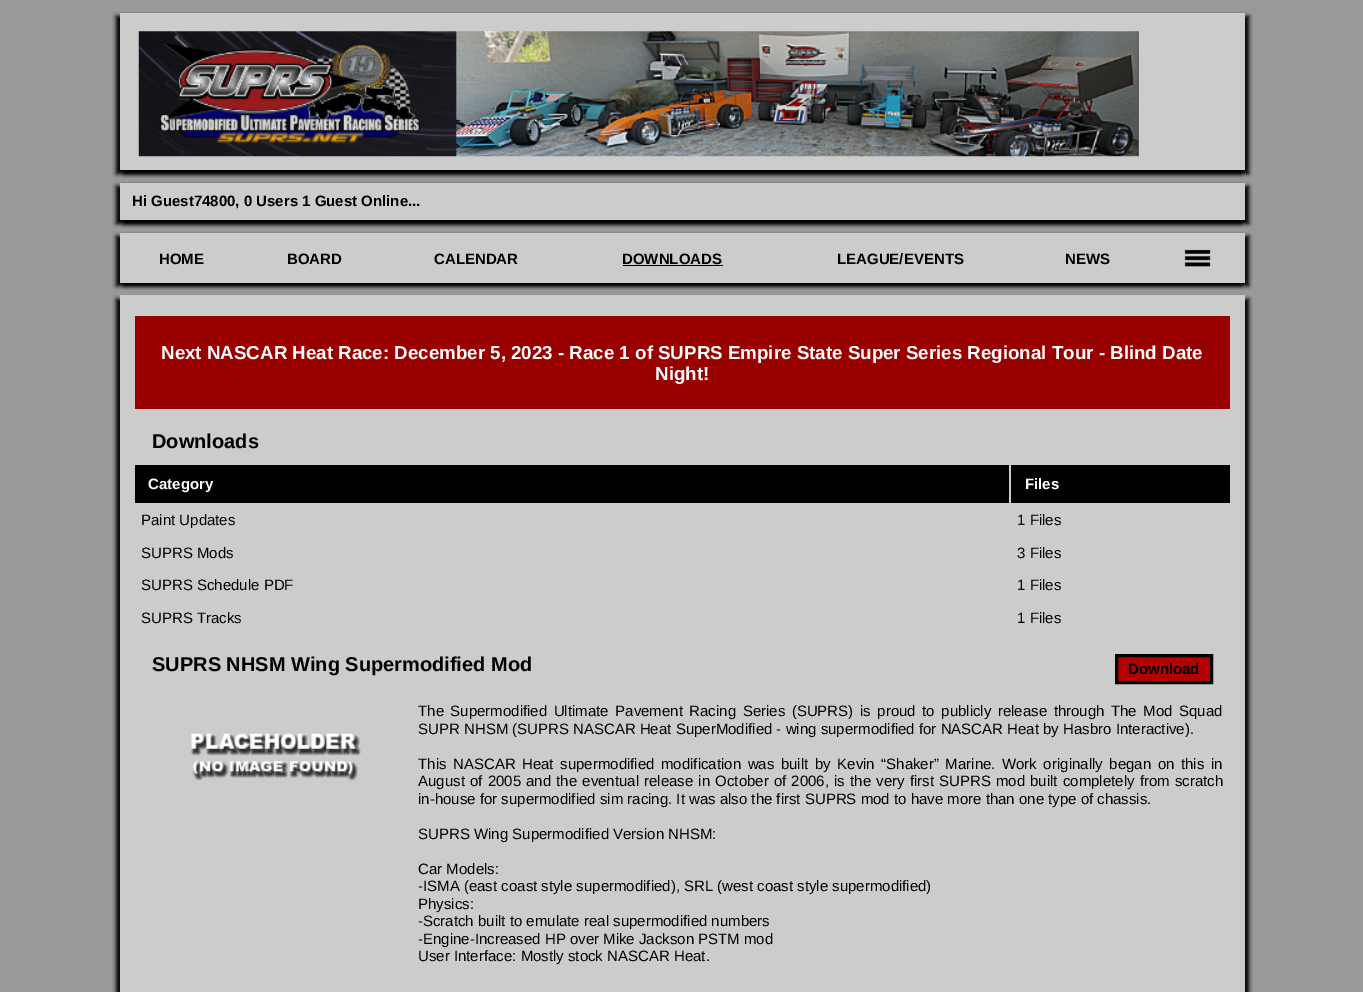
%!PS-Adobe-3.0
%%BoundingBox: 0 0 1363 992
%%LanguageLevel: 3
%%Pages: 1
%%EndComments
%%BeginProlog
/m { moveto } bind def
/l { lineto } bind def
/h { closepath } bind def
/f { fill } bind def
/S { stroke } bind def
/q { gsave } bind def
/Q { grestore } bind def
/w { setlinewidth } bind def
/fn { [ exch dup neg 0 0 3 -1 roll 0 0 ] selectfont } def
/tx { moveto show } def
/bx { rectfill } def
/al { dup .setfillconstantalpha .setstrokeconstantalpha } def
/rr { 5 dict begin { /r /h /w /y /x } { exch def } forall
  x r add y moveto x w add y 2 copy h add r arct x w add y h add x 1 index r arct
  x y h add x y r arct x y 2 copy exch w add exch r arct closepath end } def
/sh { 12 dict begin { /a /b /q /h /w /y /x } { exch def } forall gsave /was 0 def
  9 -2 -9 { dup b mul 4 div /e exch def 1 sub .425 mul 2.718 exch exp 1 add a .99 .min exch div /now exch def
    1 1 now sub 1 was sub div sub al /was now def
    w h .min e 2 mul add 0 gt { x e sub y e sub w e 2 mul add h e 2 mul add
      q e add b .6 mul add w h .min 2 div e add .min 0 .max rr fill } if } for grestore end } def
/im { 5 dict begin { /h /w /y /x /name } { exch def } forall
  gsave x y translate w h scale
  w h 8 [w 0 0 h 0 0] name (r) file false 3 colorimage grestore end } def
%%EndProlog
%%BeginSetup
<< /PageSize [1363 992] /PageUsesTransparency true >> setpagedevice
%%EndSetup
%%Page: 1 1
0 .pushpdf14devicefilter
0 992 translate 1 -1 scale
4 setmiterlimit
0.6 setgray
0 0 1363 992 bx
0 setgray
116 16 1125 158 0 2 1 sh
124 16 1125 158 0 2 1 sh
0.8 setgray
120 13 1125 157 bx
(image0.raw) 138 31 1001 126 im
0 setgray
116 186 1125 38 0 2 1 sh
124 186 1125 38 0 2 1 sh
0.8 setgray
120 183 1125 37 bx
/LiberationSans-Bold 15 fn
0 setgray
(Hi Guest74800, 0 Users 1 Guest Online...) 132 206 tx
116 236 1125 50 0 2 1 sh
124 236 1125 50 0 2 1 sh
0.8 setgray
120 233 1125 50 bx
0 setgray
(HOME) 159 264 tx
(BOARD) 287 264 tx
(CALENDAR) 434 264 tx
(DOWNLOADS) 622 264 tx
623 265 100 1 bx
(LEAGUE/EVENTS) 837 264 tx
(NEWS) 1065 264 tx
(image1.raw) 1184 249 27 18 im
116 299 1125 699 0 2 1 sh
124 299 1125 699 0 2 1 sh
0.8 setgray
120 295 1125 697 bx
0.6 0 0 setrgbcolor
135 316 1095 93 bx
/LiberationSans-Bold 18.75 fn
1 setgray
(Next NASCAR Heat Race: December 5, 2023 - Race 1 of SUPRS Empire State Super Series Regional Tour - Blind Date) 161 359 tx
(Night!) 655 380 tx
/LiberationSans-Bold 20 fn
0 setgray
(Downloads) 152 448 tx
135 465 874 38 bx
/LiberationSans-Bold 15 fn
1 setgray
(Category) 148 489 tx
0 setgray
1011 465 219 38 bx
1 setgray
(Files) 1025 489 tx
/LiberationSans-Regular 15 fn
0 setgray
(Paint Updates) 141 525 tx
(1 Files) 1017 525 tx
(SUPRS Mods) 141 558 tx
(3 Files) 1017 558 tx
(SUPRS Schedule PDF) 141 590 tx
(1 Files) 1017 590 tx
(SUPRS Tracks) 141 623 tx
(1 Files) 1017 623 tx
/LiberationSans-Bold 20 fn
(SUPRS NHSM Wing Supermodified Mod) 152 671 tx
0.702 0 0 setrgbcolor
1116.5 655.5 m 1211.5 655.5 l 1211.5 682.5 l 1116.5 682.5 l h q f Q
0 setgray
3 w
S
/LiberationSans-Bold 15 fn
(Download) 1128 674 tx
(image2.raw) 191 733 170 48 im
/LiberationSans-Regular 15 fn
418 716 m 2.4 0 32 (The Supermodified Ultimate Pavement Racing Series \(SUPRS\) is proud to publicly release through The Mod Squad) widthshow
(SUPR NHSM \(SUPRS NASCAR Heat SuperModified - wing supermodified for NASCAR Heat by Hasbro Interactive\).) 418 734 tx
418 769 m 2.4 0 32 (This NASCAR Heat supermodified modification was built by Kevin “Shaker” Marine. Work originally began on this in) widthshow
418 786 m 1 0 32 (August of 2005 and the eventual release in October of 2006, is the very first SUPRS mod built completely from scratch) widthshow
(in-house for supermodified sim racing. It was also the first SUPRS mod to have more than one type of chassis.) 418 804 tx
(SUPRS Wing Supermodified Version NHSM:) 418 839 tx
(Car Models:) 418 874 tx
(-ISMA \(east coast style supermodified\), SRL \(west coast style supermodified\)) 418 891 tx
(Physics:) 418 909 tx
(-Scratch built to emulate real supermodified numbers) 418 926 tx
(-Engine-Increased HP over Mike Jackson PSTM mod) 418 944 tx
(User Interface: Mostly stock NASCAR Heat.) 418 961 tx
.poppdf14devicefilter showpage
%%EOF
